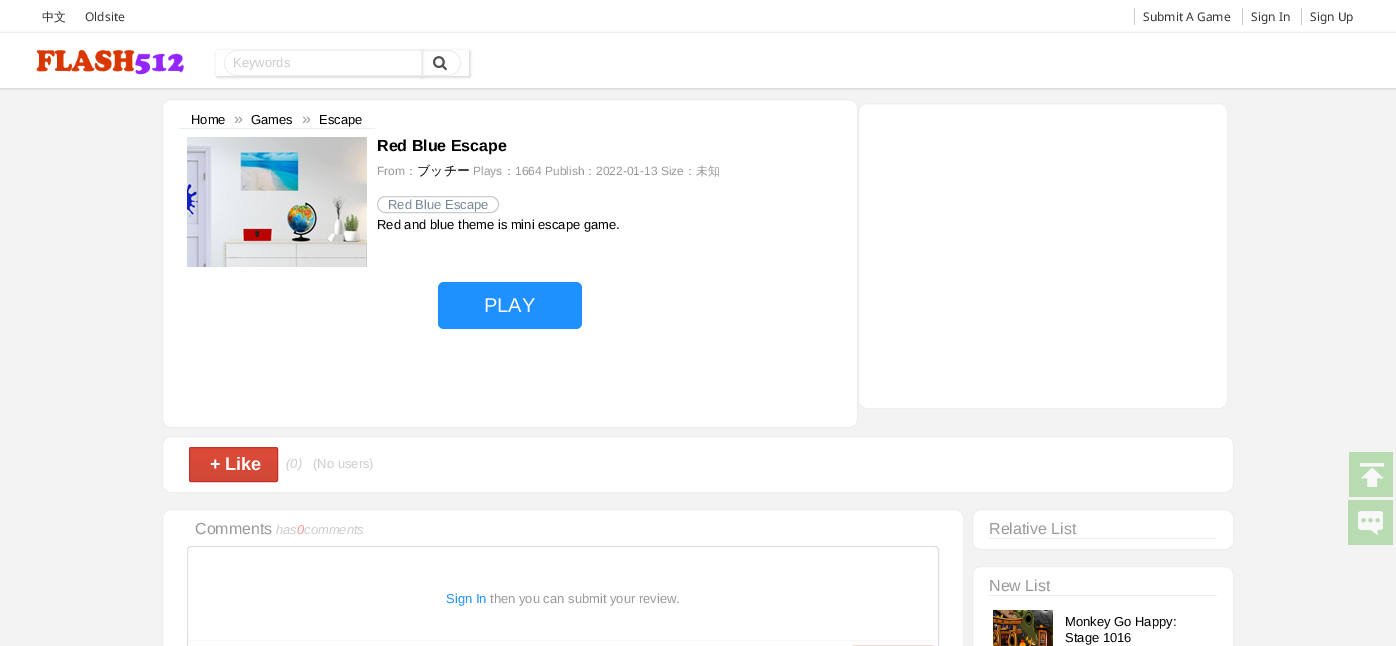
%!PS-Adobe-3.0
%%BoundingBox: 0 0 1396 646
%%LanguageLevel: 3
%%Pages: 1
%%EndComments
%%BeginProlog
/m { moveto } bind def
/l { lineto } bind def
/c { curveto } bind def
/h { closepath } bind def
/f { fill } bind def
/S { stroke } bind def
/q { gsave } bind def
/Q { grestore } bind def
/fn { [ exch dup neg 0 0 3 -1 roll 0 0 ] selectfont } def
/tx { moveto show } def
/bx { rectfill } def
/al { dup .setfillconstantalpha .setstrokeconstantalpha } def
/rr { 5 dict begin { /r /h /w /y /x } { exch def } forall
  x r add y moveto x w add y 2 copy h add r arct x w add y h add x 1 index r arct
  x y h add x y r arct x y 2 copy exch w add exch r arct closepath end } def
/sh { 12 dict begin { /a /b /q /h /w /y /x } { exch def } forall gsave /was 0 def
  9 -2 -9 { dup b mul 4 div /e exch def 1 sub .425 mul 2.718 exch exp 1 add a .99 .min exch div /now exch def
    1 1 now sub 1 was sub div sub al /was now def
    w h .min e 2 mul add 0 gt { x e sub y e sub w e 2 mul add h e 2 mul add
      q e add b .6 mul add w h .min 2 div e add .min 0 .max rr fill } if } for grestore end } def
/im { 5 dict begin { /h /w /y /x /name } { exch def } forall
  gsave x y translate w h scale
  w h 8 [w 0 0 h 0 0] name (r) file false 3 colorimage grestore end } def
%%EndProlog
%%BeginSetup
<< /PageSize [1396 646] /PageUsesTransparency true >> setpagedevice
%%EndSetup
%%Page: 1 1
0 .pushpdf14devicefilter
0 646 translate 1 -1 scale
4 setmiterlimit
0.953 setgray
0 0 1396 646 bx
1 setgray
0 0 1396 33 bx
/WenQuanYiZenHei-Medium 12 fn
0.2 setgray
(中文) 42 21 tx
/NotoSans-Regular 12 fn
(Oldsite) 85 21 tx
0.8 setgray
1134 8 1 17 bx
0.2 setgray
(Submit A Game) 1143 21 tx
0.8 setgray
1242 8 1 17 bx
0.2 setgray
(Sign In) 1251 21 tx
0.8 setgray
1301 8 1 17 bx
0.2 setgray
(Sign Up) 1310 21 tx
0.8 setgray
0 33 1396 56 0 1 1 sh
1 setgray
0 33 1396 55 bx
0.867 setgray
0 88 1396 1 bx
(image0.raw) 36 50 148 25 im
q
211 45 m 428 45 l 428 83 l 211 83 l h 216 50 m 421 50 l 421 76 l 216 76 l h eoclip newpath
0.8 setgray
217 51 205 26 0 1.5 1 sh
Q
q
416 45 m 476 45 l 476 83 l 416 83 l h 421 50 m 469 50 l 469 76 l 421 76 l h eoclip newpath
0.8 setgray
422 51 48 26 0 1.5 1 sh
Q
1 setgray
237 50 m 421 50 l 421 76 l 237 76 l 230 76 224 70 224 63 c 224 56 230 50 237 50 c h f
0.933 setgray
237 50 m 421 50 l 421 76 l 237 76 l 230 76 224 70 224 63 c 224 56 230 50 237 50 c h 237 51 m 421 51 l 421 75 l 237 75 l 230 75 225 70 225 63 c 225 56 230 51 237 51 c h eofill
/LiberationSans-Regular 13 fn
0.8 setgray
(Keywords) 233 67 tx
(image1.raw) 433 56 14 15 im
0.933 setgray
421.5 50.5 m 448 50.5 l 455 50.5 460.5 56 460.5 63 c 460.5 70 455 75.5 448 75.5 c 421.5 75.5 l h S
1 setgray
162.5 99.5 695 328 8.5 rr q f Q
0.933 setgray
S
179 128 196 1 bx
0 setgray
(Home) 191 124 tx
/LiberationSans-Regular 16 fn
0.6 setgray
(») 234 124 tx
/LiberationSans-Regular 13 fn
0 setgray
(Games) 251 124 tx
/LiberationSans-Regular 16 fn
0.6 setgray
(») 302 124 tx
/LiberationSans-Regular 13 fn
0 setgray
(Escape) 319 124 tx
(image2.raw) 187 137 180 130 im
/LiberationSans-Bold 16 fn
(Red Blue Escape) 377 151 tx
/LiberationSans-Regular 12 fn
0.6 setgray
(From) 377 175 tx
/WenQuanYiZenHei-Medium 12 fn
(：) 405 175 tx
/WenQuanYiZenHei-Medium 13 fn
0 setgray
(ブッチー) 417 175 tx
/LiberationSans-Regular 12 fn
0.6 setgray
(Plays) 473 175 tx
/WenQuanYiZenHei-Medium 12 fn
(：) 503 175 tx
/LiberationSans-Regular 12 fn
(1664 Publish) 515 175 tx
/WenQuanYiZenHei-Medium 12 fn
(：) 584 175 tx
/LiberationSans-Regular 12 fn
(2022-01-13 Size) 596 175 tx
/WenQuanYiZenHei-Medium 12 fn
(：未知) 684 175 tx
0.8 setgray
377.5 196.5 121 16 8 rr S
/LiberationSans-Regular 13 fn
0.467 0.533 0.6 setrgbcolor
(Red Blue Escape) 388 209 tx
0 setgray
(Red and blue theme is mini escape game.) 377 229 tx
0.118 0.565 1 setrgbcolor
438 282 144 47 6 rr f
/LiberationSans-Regular 20 fn
1 setgray
(PLAY) 484 312 tx
858.5 103.5 369 305 8.5 rr q f Q
0.933 setgray
S
1 setgray
162.5 436.5 1071 56 8.5 rr q f Q
0.933 setgray
S
q
189 447 89 35 2 rr clip newpath
q 189 448 m 278 448 l 278 481 l 189 481 l h clip newpath
<< /ShadingType 2 /ColorSpace /DeviceRGB /Coords [234 448 234 481] /Extend [true true] /Function << /FunctionType 2 /Domain [0 1] /C0 [0.867 0.294 0.224] /C1 [0.82 0.282 0.212] /N 1 >> >> shfill Q
Q
0.776 0.196 0.165 setrgbcolor
189.5 447.5 88 34 1.5 rr S
/LiberationSans-Bold 18 fn
1 setgray
(+) 210 470 tx
(Like) 225 470 tx
/LiberationSans-Italic 13 fn
0.8 setgray
(\(0\)) 286 468 tx
/LiberationSans-Regular 13 fn
(\(No users\)) 313 468 tx
1 setgray
162.5 509.5 801 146 8.5 rr q f Q
0.933 setgray
S
/LiberationSans-Regular 16 fn
0.6 setgray
(Comments) 195 534 tx
/LiberationSans-Italic 13 fn
0.8 setgray
(has) 276 534 tx
1 0.6 0.6 setrgbcolor
(0) 297 534 tx
0.8 setgray
(comments) 304 534 tx
0.976 setgray
187.5 546.5 751 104 3.5 rr q f Q
0.867 setgray
S
1 setgray
188 547 750 93 6 rr f
0.867 setgray
188 640 750 1 bx
0.776 0.196 0.165 setrgbcolor
852.5 645.5 81 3 1.5 rr S
0.8 al
1 setgray
188 636 750 10 bx
/LiberationSans-Regular 13 fn
1 al
0.118 0.565 1 setrgbcolor
(Sign In) 446 603 tx
0.6 setgray
(then you can submit your review.) 490 603 tx
1 setgray
972.5 509.5 261 40 8.5 rr q f Q
0.933 setgray
S
989 538 228 1 bx
/LiberationSans-Regular 16 fn
0.6 setgray
(Relative List) 989 534 tx
1 setgray
972.5 566.5 261 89 8.5 rr q f Q
0.933 setgray
S
989 595 228 1 bx
0.6 setgray
(New List) 989 591 tx
(image3.raw) 993 610 60 36 im
/LiberationSans-Regular 13 fn
0 setgray
(Monkey Go Happy:) 1065 626 tx
(Stage 1016) 1065 642 tx
(image4.raw) 1349 452 44 45 im
(image5.raw) 1348 500 45 45 im
.poppdf14devicefilter showpage
%%EOF
